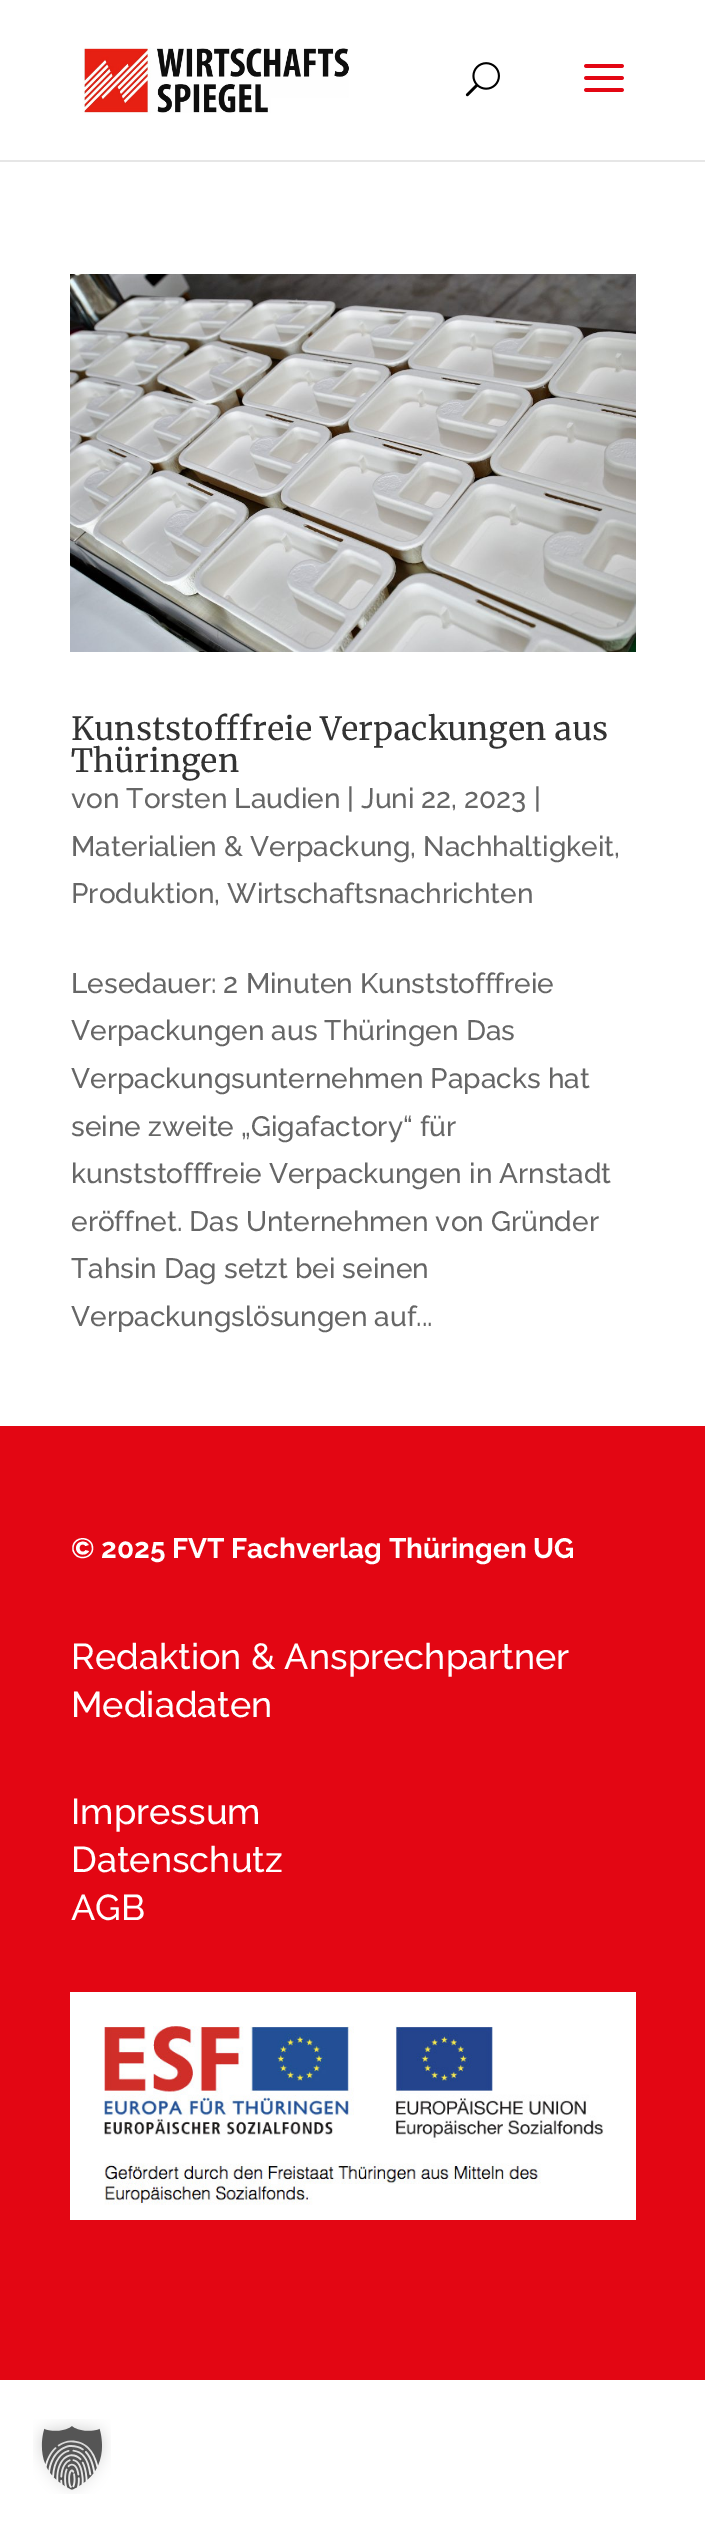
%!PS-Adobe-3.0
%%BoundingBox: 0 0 705 2530
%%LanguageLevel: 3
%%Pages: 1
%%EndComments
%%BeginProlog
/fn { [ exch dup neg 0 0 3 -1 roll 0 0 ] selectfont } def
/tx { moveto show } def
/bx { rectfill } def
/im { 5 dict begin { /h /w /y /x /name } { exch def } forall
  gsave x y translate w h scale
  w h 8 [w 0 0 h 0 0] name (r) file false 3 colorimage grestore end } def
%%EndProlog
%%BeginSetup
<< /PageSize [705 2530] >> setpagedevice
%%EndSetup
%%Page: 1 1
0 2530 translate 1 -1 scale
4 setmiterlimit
1 setgray
0 0 705 2530 bx
0.902 setgray
0 160 705 2 bx
(image0.raw) 82 47 267 68 im
(image1.raw) 465 62 35 35 im
(image2.raw) 584 64 40 28 im
(image3.raw) 70 274 566 378 im
/Merriweather-Regular 32 fn
0.2 setgray
(Kunststofffreie Verpackungen aus) 71 740 tx
(Thüringen) 71 772 tx
/Raleway-Medium 28 fn
0.4 setgray
(von Torsten Laudien | Juni 22, 2023 |) 71 808 tx
(Materialien & Verpackung, Nachhaltigkeit,) 71 856 tx
(Produktion, Wirtschaftsnachrichten) 71 903 tx
(Lesedauer: 2 Minuten Kunststofffreie) 71 993 tx
(Verpackungen aus Thüringen Das) 71 1040 tx
(Verpackungsunternehmen Papacks hat) 71 1088 tx
(seine zweite „Gigafactory“ für) 71 1136 tx
(kunststofffreie Verpackungen in Arnstadt) 71 1183 tx
(eröffnet. Das Unternehmen von Gründer) 71 1231 tx
(Tahsin Dag setzt bei seinen) 71 1278 tx
(Verpackungslösungen auf...) 71 1326 tx
0.89 0.024 0.075 setrgbcolor
0 1426 705 954 bx
/Raleway-Bold 28 fn
1 setgray
(© 2025 FVT Fachverlag Thüringen UG) 71 1558 tx
/Raleway-Medium 36 fn
(Redaktion & Ansprechpartner) 71 1669 tx
(Mediadaten) 71 1717 tx
(Impressum) 71 1824 tx
(Datenschutz) 71 1872 tx
(AGB) 71 1920 tx
(image4.raw) 70 1992 566 228 im
(image5.raw) 33 2419 78 75 im
showpage
%%EOF
